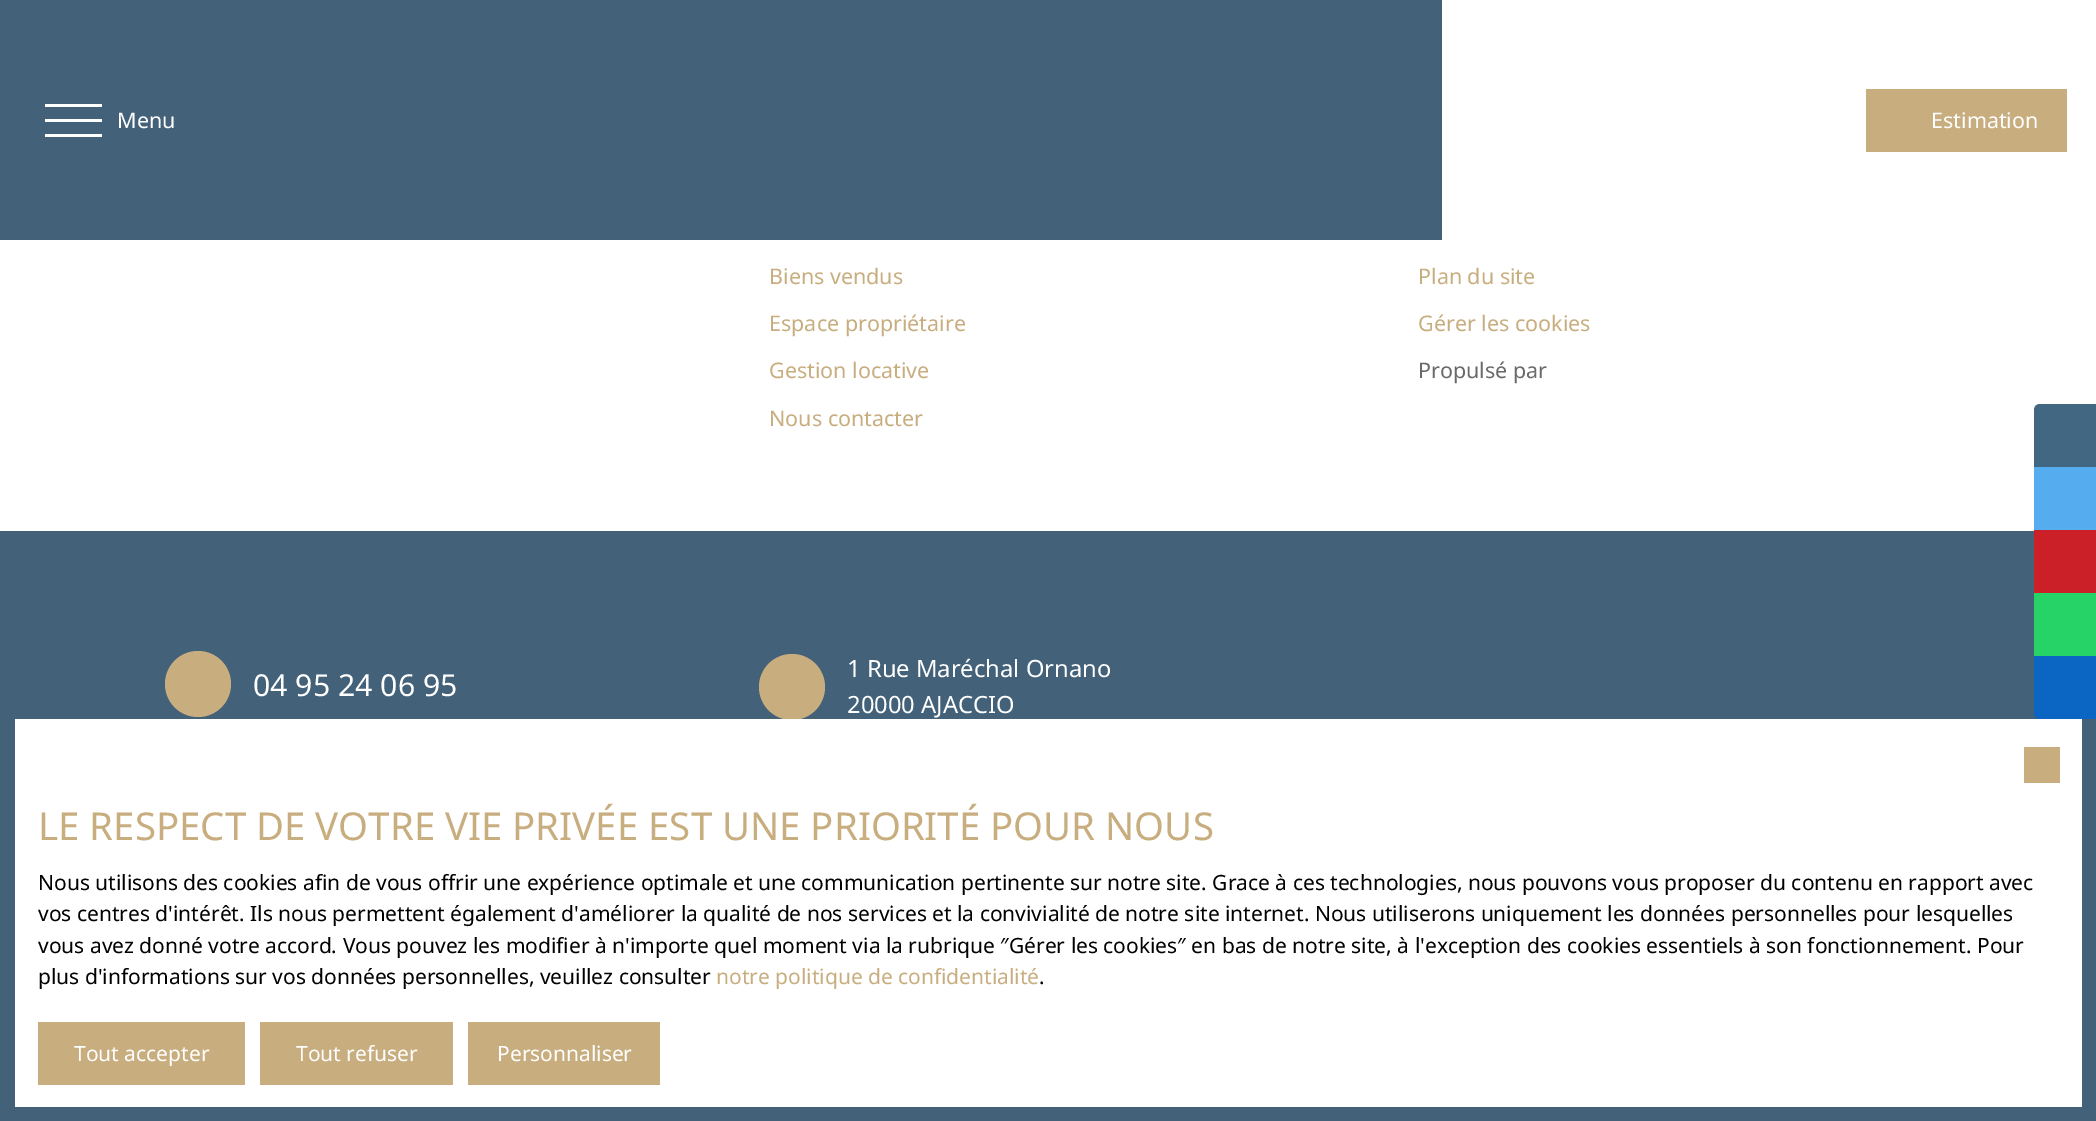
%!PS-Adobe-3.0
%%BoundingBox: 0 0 2096 1121
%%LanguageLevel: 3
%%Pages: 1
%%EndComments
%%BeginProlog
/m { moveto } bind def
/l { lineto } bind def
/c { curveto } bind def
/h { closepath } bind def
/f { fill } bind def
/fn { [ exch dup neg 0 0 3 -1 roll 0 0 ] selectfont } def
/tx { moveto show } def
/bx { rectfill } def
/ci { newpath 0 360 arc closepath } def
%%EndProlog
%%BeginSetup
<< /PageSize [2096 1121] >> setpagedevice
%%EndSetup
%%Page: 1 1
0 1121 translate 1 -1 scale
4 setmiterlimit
1 setgray
0 0 2096 1121 bx
0.263 0.384 0.478 setrgbcolor
0 0 1442 240 bx
1 setgray
45 104 57 3 bx
45 119 57 3 bx
45 134 57 3 bx
/NotoSans-Regular 21.5 fn
(Menu) 117 128 tx
0.784 0.678 0.498 setrgbcolor
1866 89 201 63 bx
1 setgray
(Estimation) 1931 128 tx
0.784 0.678 0.498 setrgbcolor
(Biens vendus) 769 284 tx
(Espace propriétaire) 769 331 tx
(Gestion locative) 769 378 tx
(Nous contacter) 769 426 tx
(Plan du site) 1418 284 tx
(Gérer les cookies) 1418 331 tx
0.416 setgray
(Propulsé par) 1418 378 tx
0.263 0.384 0.478 setrgbcolor
0 531 2096 590 bx
0.784 0.678 0.498 setrgbcolor
198 684 33 ci f
/NotoSans-Regular 30.25 fn
1 setgray
(04 95 24 06 95) 253 696 tx
0.784 0.678 0.498 setrgbcolor
792 687 33 ci f
/NotoSans-Regular 23.75 fn
1 setgray
(1 Rue Maréchal Ornano) 847 677 tx
(20000 AJACCIO) 847 713 tx
0.259 0.404 0.51 setrgbcolor
2040 404 m 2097 404 l 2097 467 l 2034 467 l 2034 410 l 2034 406.5 2036.5 404 2040 404 c h f
0.333 0.675 0.933 setrgbcolor
2034 467 62 63 bx
0.796 0.125 0.153 setrgbcolor
2034 530 62 63 bx
0.145 0.827 0.4 setrgbcolor
2034 593 62 63 bx
0.039 0.4 0.761 setrgbcolor
2034 656 m 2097 656 l 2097 719 l 2040 719 l 2036.5 719 2034 716.5 2034 713 c h f
1 setgray
15 719 2067 388 bx
0.784 0.678 0.498 setrgbcolor
2024 747 36 36 bx
/NotoSans-Regular 38.4 fn
(LE RESPECT DE VOTRE VIE PRIVÉE EST UNE PRIORITÉ POUR NOUS) 38 840 tx
/NotoSans-Regular 21 fn
0 setgray
(Nous utilisons des cookies afin de vous offrir une expérience optimale et une communication pertinente sur notre site. Grace à ces technologies, nous pouvons vous proposer du contenu en rapport avec) 38 890 tx
(vos centres d'intérêt. Ils nous permettent également d'améliorer la qualité de nos services et la convivialité de notre site internet. Nous utiliserons uniquement les données personnelles pour lesquelles) 38 921 tx
(vous avez donné votre accord. Vous pouvez les modifier à n'importe quel moment via la rubrique ″Gérer les cookies″ en bas de notre site, à l'exception des cookies essentiels à son fonctionnement. Pour) 38 953 tx
(plus d'informations sur vos données personnelles, veuillez consulter) 38 984 tx
0.784 0.678 0.498 setrgbcolor
(notre politique de confidentialité) 716 984 tx
0 setgray
(.) 1039 984 tx
0.784 0.678 0.498 setrgbcolor
38 1022 207 63 bx
1 setgray
(Tout accepter) 74 1061 tx
0.784 0.678 0.498 setrgbcolor
260 1022 193 63 bx
1 setgray
(Tout refuser) 296 1061 tx
0.784 0.678 0.498 setrgbcolor
468 1022 192 63 bx
1 setgray
(Personnaliser) 497 1061 tx
showpage
%%EOF
